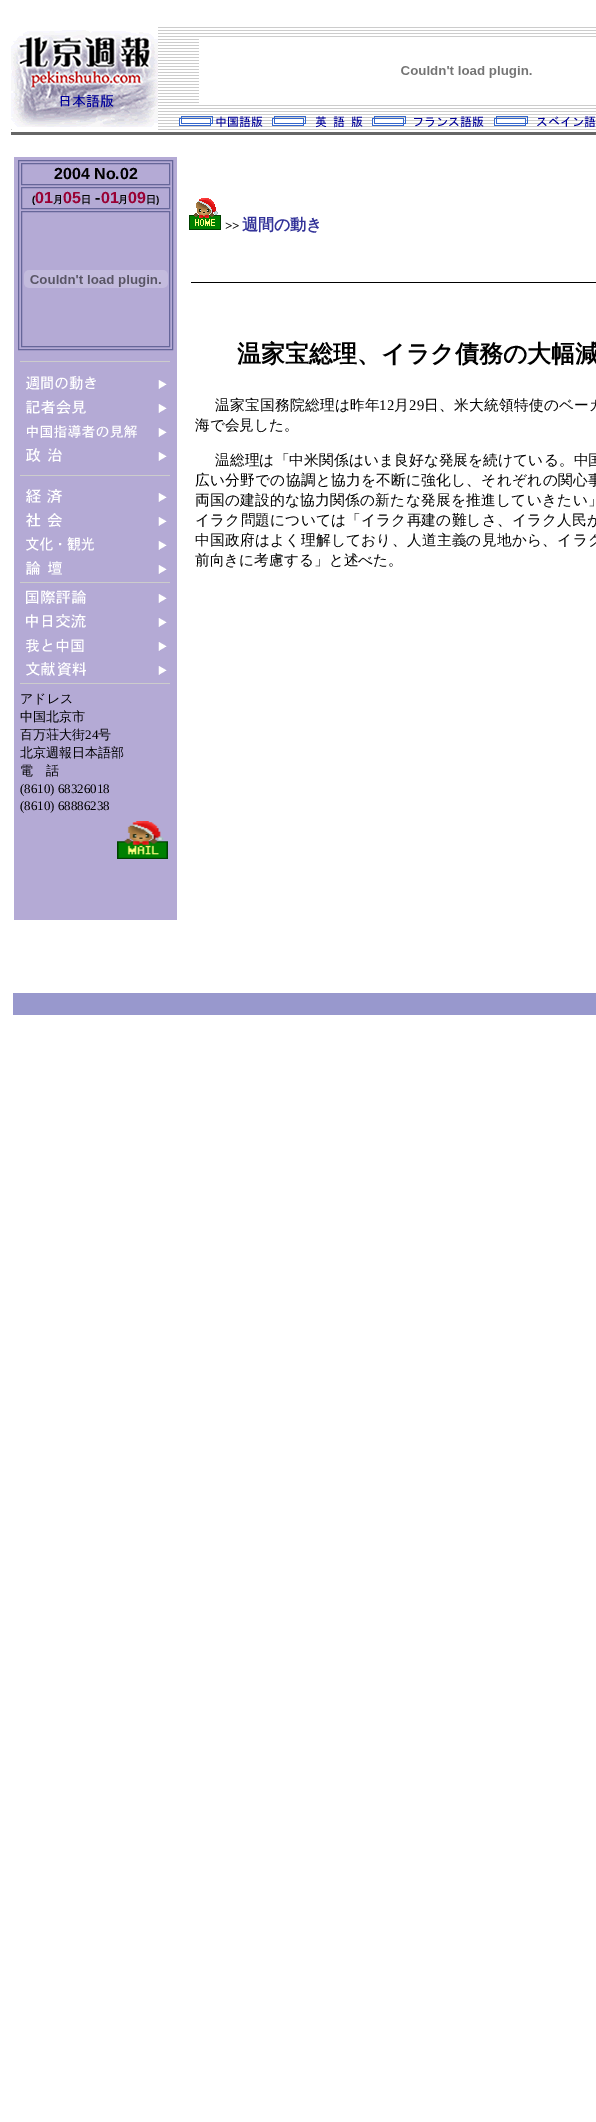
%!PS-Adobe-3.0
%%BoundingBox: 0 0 596 2122
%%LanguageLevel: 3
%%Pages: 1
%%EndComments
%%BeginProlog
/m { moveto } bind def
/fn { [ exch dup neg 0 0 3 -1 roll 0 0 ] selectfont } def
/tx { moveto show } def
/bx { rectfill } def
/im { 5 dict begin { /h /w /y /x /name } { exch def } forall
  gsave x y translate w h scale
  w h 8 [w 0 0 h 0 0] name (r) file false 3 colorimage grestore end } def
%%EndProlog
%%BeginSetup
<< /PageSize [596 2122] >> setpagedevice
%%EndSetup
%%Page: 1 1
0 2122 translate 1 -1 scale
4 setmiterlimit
1 setgray
0 0 596 2122 bx
(image0.raw) 19 27 577 10 im
(image1.raw) 11 37 188 98 im
(image2.raw) 401 66 131 12 im
(image3.raw) 199 105 397 10 im
(image4.raw) 199 116 17 19 im
(image5.raw) 216 116 47 12 im
(image6.raw) 263 116 53 19 im
(image7.raw) 316 116 47 12 im
(image8.raw) 363 116 51 19 im
(image9.raw) 414 116 70 12 im
(image10.raw) 484 116 53 19 im
(image11.raw) 537 116 59 12 im
(image12.raw) 216 129 47 6 im
(image12.raw) 316 129 47 6 im
(image13.raw) 414 129 70 6 im
(image14.raw) 537 129 59 6 im
0.706 0.667 0.835 setrgbcolor
14 157 163 763 bx
0.4 0.4 0.6 setrgbcolor
18.5 160.5 154 189 rectstroke
21.5 163.5 148 21 rectstroke
/LiberationSans-Bold 16 fn
0 setgray
(2004 No.02) 54 179 tx
0.4 0.4 0.6 setrgbcolor
21.5 187.5 148 21 rectstroke
/LiberationSans-Bold 10 fn
0 setgray
(\() 32 203 tx
/LiberationSans-Bold 16 fn
0.6 0 0.2 setrgbcolor
(01) 35 203 tx
/WenQuanYiZenHei-Bold 10 fn
0 setgray
(月) 53 203 tx
/LiberationSans-Bold 16 fn
0.6 0 0.2 setrgbcolor
(05) 63 203 tx
/WenQuanYiZenHei-Bold 10 fn
0 setgray
(日) 81 203 tx
/LiberationSans-Bold 16 fn
(-) 95 203 tx
0.6 0 0.2 setrgbcolor
(01) 101 203 tx
/WenQuanYiZenHei-Bold 10 fn
0 setgray
(月) 118 203 tx
/LiberationSans-Bold 16 fn
0.6 0 0.2 setrgbcolor
(09) 128 203 tx
/WenQuanYiZenHei-Bold 10 fn
0 setgray
(日) 146 203 tx
/LiberationSans-Bold 10 fn
(\)) 156 203 tx
0.4 0.4 0.6 setrgbcolor
21.5 211.5 148 135 rectstroke
(image15.raw) 24 270 144 18 im
0.8 setgray
20 361 150 1 bx
(image16.raw) 26 376 141 14 im
(image17.raw) 26 400 141 14 im
(image18.raw) 27 425 140 13 im
(image19.raw) 26 448 141 14 im
20 475 150 1 bx
(image20.raw) 26 489 141 14 im
(image21.raw) 26 513 141 14 im
(image22.raw) 26 537 141 14 im
(image23.raw) 26 561 141 14 im
20 582 150 1 bx
(image24.raw) 26 590 141 14 im
(image25.raw) 26 614 141 14 im
(image26.raw) 26 639 141 14 im
(image27.raw) 26 662 141 14 im
20 683 150 1 bx
/WenQuanYiZenHei-Medium 13 fn
0 setgray
(アドレス) 20 703 tx
(中国北京市) 20 721 tx
(百万荘大街) 20 739 tx
/LiberationSerif-Regular 13 fn
(24) 85 739 tx
/WenQuanYiZenHei-Medium 13 fn
(号) 98 739 tx
(北京週報日本語部) 20 757 tx
(電　話) 20 775 tx
/LiberationSerif-Regular 13 fn
(\(8610\) 68326018) 20 793 tx
(\(8610\) 68886238) 20 810 tx
(image28.raw) 117 821 51 38 im
(image29.raw) 189 198 32 32 im
/LiberationSerif-Bold 13 fn
(>>) 225 230 tx
/WenQuanYiZenHei-Bold 16 fn
0.2 0.2 0.6 setrgbcolor
(週間の動き) 242 230 tx
0 setgray
191 282 405 1 bx
/WenQuanYiZenHei-Bold 24 fn
(温家宝総理、イラク債務の大幅減) 237 362 tx
/WenQuanYiZenHei-Medium 14.7 fn
215 410 m 0.25 0 (温家宝国務院総理は昨年) ashow
/LiberationSerif-Regular 14.7 fn
379 410 m 0.25 0 (12) ashow
/WenQuanYiZenHei-Medium 14.7 fn
394 410 m 0.25 0 (月) ashow
/LiberationSerif-Regular 14.7 fn
409 410 m 0.25 0 (29) ashow
/WenQuanYiZenHei-Medium 14.7 fn
424 410 m 0.25 0 (日、米大統領特使のベーカ) ashow
(海で会見した。) 195 430 tx
215 465 m 0.1 0 (温総理は「中米関係はいま良好な発展を続けている。中国) ashow
195 485 m 0.25 0 (広い分野での協調と協力を不断に強化し、それぞれの関心事) ashow
195 505 m 0.25 0 (両国の建設的な協力関係の新たな発展を推進していきたい」) ashow
195 525 m 0.15 0 (イラク問題については「イラク再建の難しさ、イラク人民が) ashow
195 545 m 0.25 0 (中国政府はよく理解しており、人道主義の見地から、イラク) ashow
(前向きに考慮する」と述べた。) 195 565 tx
0.596 0.596 0.804 setrgbcolor
13 993 583 22 bx
showpage
%%EOF
